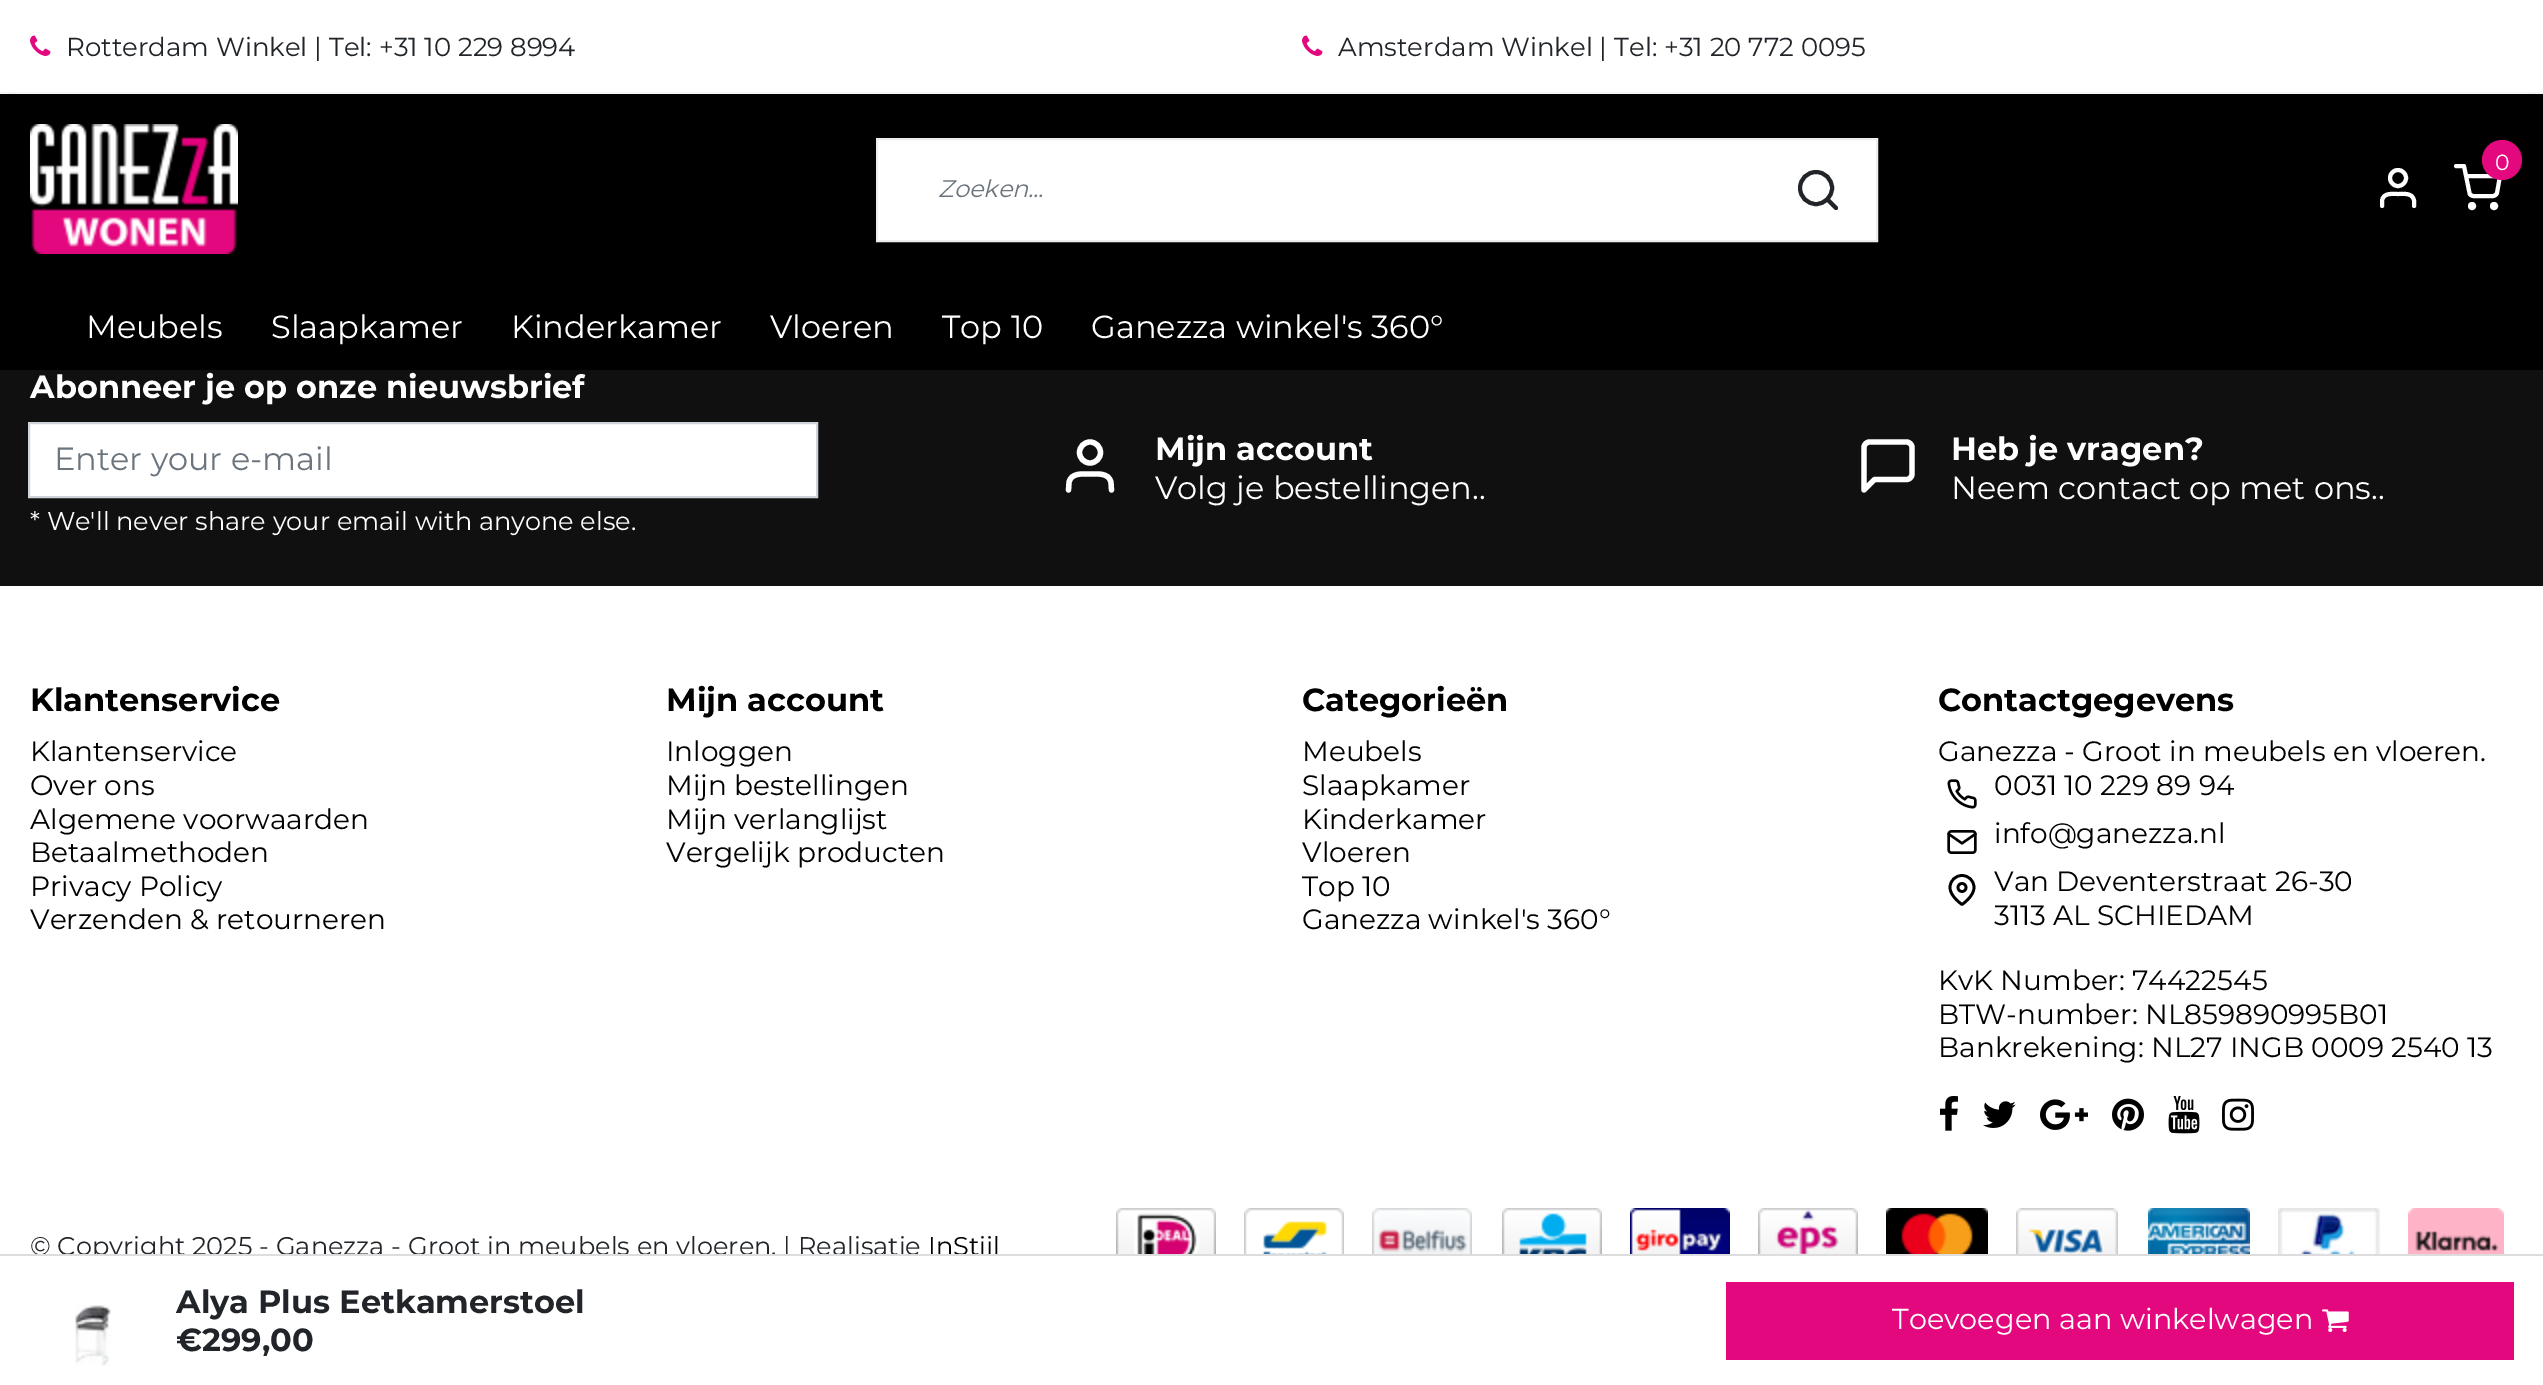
%!PS-Adobe-3.0
%%BoundingBox: 0 0 2543 1385
%%LanguageLevel: 3
%%Pages: 1
%%EndComments
%%BeginProlog
/m { moveto } bind def
/l { lineto } bind def
/c { curveto } bind def
/h { closepath } bind def
/f { fill } bind def
/S { stroke } bind def
/q { gsave } bind def
/Q { grestore } bind def
/w { setlinewidth } bind def
/fn { [ exch dup neg 0 0 3 -1 roll 0 0 ] selectfont } def
/tx { moveto show } def
/bx { rectfill } def
/al { dup .setfillconstantalpha .setstrokeconstantalpha } def
/ci { newpath 0 360 arc closepath } def
/rr { 5 dict begin { /r /h /w /y /x } { exch def } forall
  x r add y moveto x w add y 2 copy h add r arct x w add y h add x 1 index r arct
  x y h add x y r arct x y 2 copy exch w add exch r arct closepath end } def
/sh { 12 dict begin { /a /b /q /h /w /y /x } { exch def } forall gsave /was 0 def
  9 -2 -9 { dup b mul 4 div /e exch def 1 sub .425 mul 2.718 exch exp 1 add a .99 .min exch div /now exch def
    1 1 now sub 1 was sub div sub al /was now def
    w h .min e 2 mul add 0 gt { x e sub y e sub w e 2 mul add h e 2 mul add
      q e add b .6 mul add w h .min 2 div e add .min 0 .max rr fill } if } for grestore end } def
/im { 5 dict begin { /h /w /y /x /name } { exch def } forall
  gsave x y translate w h scale
  w h 8 [w 0 0 h 0 0] name (r) file false 3 colorimage grestore end } def
%%EndProlog
%%BeginSetup
<< /PageSize [2543 1385] /PageUsesTransparency true >> setpagedevice
%%EndSetup
%%Page: 1 1
0 .pushpdf14devicefilter
0 1385 translate 1 -1 scale
4 setmiterlimit
1 setgray
0 0 2543 1385 bx
0.063 setgray
0 370 2543 216 bx
1 setgray
29 423 m 817 423 l 817 497 l 29 497 l h q f Q
0.808 0.831 0.855 setrgbcolor
2 w
S
0 setgray
0 4 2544 370 0 16 0.05 sh
1 setgray
0 0 2543 92 bx
0.969 setgray
16 92 2512 2 bx
(image0.raw) 30 35 21 21 im
/Montserrat-Regular 26 fn
0.129 0.145 0.161 setrgbcolor
(Rotterdam Winkel | Tel: +31 10 229 8994) 66 56 tx
(image0.raw) 1302 35 21 21 im
(Amsterdam Winkel | Tel: +31 20 772 0095) 1338 56 tx
0 setgray
0 94 2543 276 bx
(image1.raw) 30 124 208 130 im
1 setgray
4 w
1 setlinecap
1 setlinejoin
2456 166 m 2464 166 l 2469.5 193 l 2469.5 194.5 2471.5 196 2473.5 196 c 2493 196 l 2494.5 196 2496.5 194.5 2497 193 c 2500 176 l 2466 176 l S
0.894 0.031 0.494 setrgbcolor
2502 160 20 ci f
/Montserrat-Regular 22 fn
1 setgray
(0) 2495 170 tx
0 setlinecap
0 setlinejoin
2472 206 2 ci S
2494 206 2 ci S
1 setlinecap
1 setlinejoin
2414 206 m 2414 200.5 l 2412.5 192.5 2404 194 2398 194 c 2392 194 2383.5 192.5 2382 200.5 c 2382 206 l S
0 setlinecap
0 setlinejoin
2398 178 8 ci S
877 139 m 1877 139 l 1877 241 l 877 241 l h q f Q
0.933 setgray
2 w
S
/Montserrat-Italic 24 fn
0.424 0.459 0.49 setrgbcolor
(Zoeken...) 938 197 tx
0.129 0.145 0.161 setrgbcolor
4 w
1816 188 16 ci S
1 setlinecap
1 setlinejoin
1836 208 m 1827.5 199.5 l S
/Montserrat-Regular 32 fn
1 setgray
(Meubels) 86 338 tx
(Slaapkamer) 271 338 tx
(Kinderkamer) 511 338 tx
(Vloeren) 770 338 tx
(Top 10) 942 338 tx
(Ganezza winkel's 360°) 1091 338 tx
/Montserrat-Bold 32 fn
(Abonneer je op onze nieuwsbrief) 30 398 tx
/Montserrat-Regular 32 fn
0.424 0.459 0.49 setrgbcolor
(Enter your e-mail) 54 470 tx
/Montserrat-Regular 25.6 fn
1 setgray
(* We'll never share your email with anyone else.) 30 530 tx
5.3 w
1111.5 490 m 1111 482.5 l 1109 472.5 1097.5 474 1090 474 c 1082.5 474 1071 472.5 1069 482.5 c 1068.5 490 l S
0 setlinecap
0 setlinejoin
1090 452.5 10.5 ci S
/Montserrat-Bold 32 fn
(Mijn account) 1155 460 tx
/Montserrat-Regular 32 fn
(Volg je bestellingen..) 1155 499 tx
1 setlinecap
1 setlinejoin
1912 474 m 1912 477 1909.5 479.5 1906.5 479.5 c 1874.5 479.5 l 1864 490 l 1864 447.5 l 1864 444.5 1866.5 442 1869.5 442 c 1906.5 442 l 1909.5 442 1912 444.5 1912 447.5 c h S
/Montserrat-Bold 32 fn
(Heb je vragen?) 1951 460 tx
/Montserrat-Regular 32 fn
(Neem contact op met ons..) 1951 499 tx
/Montserrat-Bold 32 fn
0 setgray
(Klantenservice) 30 711 tx
/Montserrat-Regular 28 fn
(Klantenservice) 30 761 tx
(Over ons) 30 795 tx
(Algemene voorwaarden) 30 829 tx
(Betaalmethoden) 30 862 tx
(Privacy Policy) 30 896 tx
(Verzenden & retourneren) 30 929 tx
/Montserrat-Bold 32 fn
(Mijn account) 666 711 tx
/Montserrat-Regular 28 fn
(Inloggen) 666 761 tx
(Mijn bestellingen) 666 795 tx
(Mijn verlanglijst) 666 829 tx
(Vergelijk producten) 666 862 tx
/Montserrat-Bold 32 fn
(Categorieën) 1302 711 tx
/Montserrat-Regular 28 fn
(Meubels) 1302 761 tx
(Slaapkamer) 1302 795 tx
(Kinderkamer) 1302 829 tx
(Vloeren) 1302 862 tx
(Top 10) 1302 896 tx
(Ganezza winkel's 360°) 1302 929 tx
/Montserrat-Bold 32 fn
(Contactgegevens) 1938 711 tx
/Montserrat-Regular 28 fn
(Ganezza - Groot in meubels en vloeren.) 1938 761 tx
(image2.raw) 1947 779 30 30 im
(0031 10 229 89 94) 1994 795 tx
(image3.raw) 1947 830 30 24 im
(info@ganezza.nl) 1994 843 tx
2.7 w
1974 887.5 m 1974 896.5 1962 904.5 1962 904.5 c 1962 904.5 1950 896.5 1950 887.5 c 1950 880.5 1955.5 875.5 1962 875.5 c 1968.5 875.5 1974 880.5 1974 887.5 c h S
0 setlinecap
0 setlinejoin
1962 887.5 4 ci S
(Van Deventerstraat 26-30) 1994 891 tx
(3113 AL SCHIEDAM) 1994 925 tx
(KvK Number: 74422545) 1938 990 tx
(BTW-number: NL859890995B01) 1938 1024 tx
(Bankrekening: NL27 INGB 0009 2540 13) 1938 1057 tx
(image4.raw) 1940 1096 18 35 im
(image5.raw) 1983 1101 33 27 im
(image6.raw) 2040 1099 48 31 im
(image7.raw) 2112 1098 32 33 im
(image8.raw) 2168 1096 32 38 im
(image9.raw) 2222 1098 32 33 im
/Montserrat-Regular 25.6 fn
0.129 0.145 0.161 setrgbcolor
(© Copyright 2025 - Ganezza - Groot in meubels en vloeren. | Realisatie) 30 1255 tx
0 setgray
(InStijl) 928 1255 tx
(image10.raw) 1116 1208 100 46 im
(image11.raw) 1244 1208 100 46 im
(image12.raw) 1372 1208 100 46 im
(image13.raw) 1502 1208 100 46 im
(image14.raw) 1630 1208 100 46 im
(image15.raw) 1758 1208 100 46 im
(image16.raw) 1886 1208 102 46 im
(image17.raw) 2016 1208 102 46 im
(image18.raw) 2148 1208 102 46 im
(image19.raw) 2278 1208 102 46 im
(image20.raw) 2408 1208 96 46 im
1 setgray
94 1256 897 5 bx
0.867 setgray
0 1254 2543 2 bx
(image21.raw) 75 1305 36 61 im
/Montserrat-Bold 32 fn
0.129 0.145 0.161 setrgbcolor
(Alya Plus Eetkamerstoel) 176 1313 tx
(€299,00) 176 1351 tx
0.894 0.031 0.494 setrgbcolor
1726 1282 788 78 bx
/Montserrat-Regular 28.75 fn
1 setgray
(Toevoegen aan winkelwagen) 1892 1329 tx
(image22.raw) 2322 1309 27 23 im
.poppdf14devicefilter showpage
%%EOF
